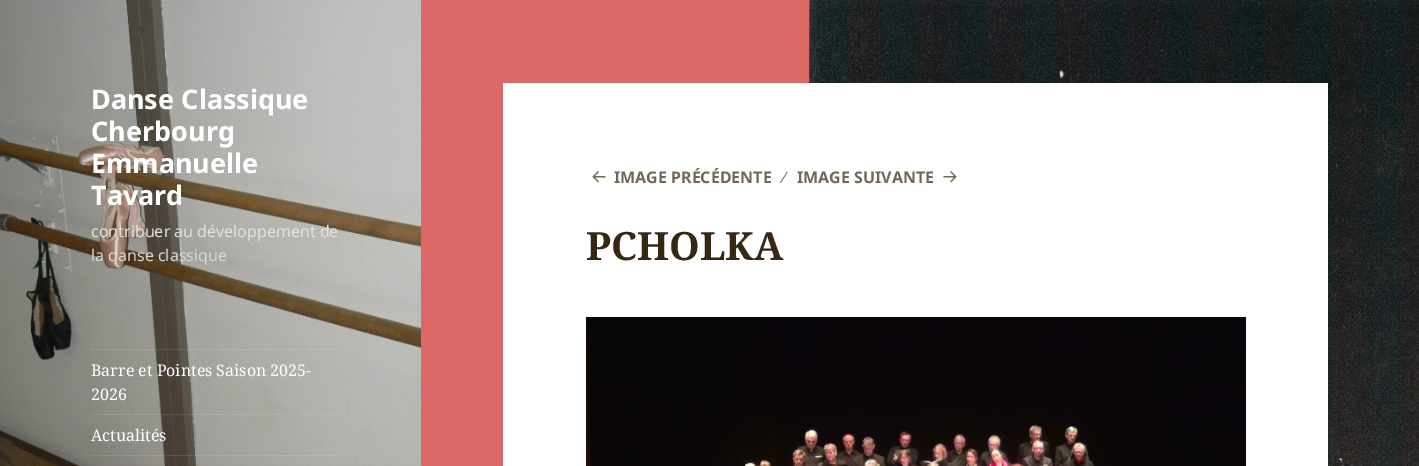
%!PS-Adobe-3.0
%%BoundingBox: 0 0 1419 466
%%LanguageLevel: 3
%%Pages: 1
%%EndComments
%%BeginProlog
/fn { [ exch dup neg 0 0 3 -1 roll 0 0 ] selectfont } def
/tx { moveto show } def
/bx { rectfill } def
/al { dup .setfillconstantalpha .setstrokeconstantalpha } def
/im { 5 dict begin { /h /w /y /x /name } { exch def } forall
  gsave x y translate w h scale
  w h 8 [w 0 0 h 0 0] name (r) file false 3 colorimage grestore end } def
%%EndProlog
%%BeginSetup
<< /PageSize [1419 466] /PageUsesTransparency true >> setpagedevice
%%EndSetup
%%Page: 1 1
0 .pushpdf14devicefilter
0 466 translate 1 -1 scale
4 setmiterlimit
0.867 0.408 0.408 setrgbcolor
0 0 1419 466 bx
(image0.raw) 809 0 610 466 im
(image1.raw) 0 0 421 466 im
/NotoSans-Bold 27 fn
1 setgray
(Danse Classique) 91 109 tx
(Cherbourg) 91 141 tx
(Emmanuelle) 91 173 tx
(Tavard) 91 205 tx
/NotoSans-Regular 16 fn
0.89 0.882 0.875 setrgbcolor
(contribuer au développement de) 91 237 tx
0.851 0.839 0.824 setrgbcolor
(la danse classique) 91 261 tx
0.1 al
1 setgray
91 349 247 1 bx
/NotoSerif-Regular 16 fn
1 al
(Barre et Pointes Saison 2025-) 91 376 tx
(2026) 91 400 tx
0.1 al
91 414 247 1 bx
1 al
(Actualités) 91 441 tx
0.1 al
91 455 247 1 bx
1 al
503 83 825 383 bx
(image2.raw) 592 171 14 12 im
/NotoSans-Bold 16 fn
0.447 0.408 0.349 setrgbcolor
(IMAGE PRÉCÉDENTE) 614 183 tx
/LiberationSans-Regular 16 fn
(∕) 783 183 tx
/NotoSans-Bold 16 fn
(IMAGE SUIVANTE) 797 183 tx
(image3.raw) 943 171 14 12 im
/NotoSerif-Bold 39 fn
0.208 0.153 0.071 setrgbcolor
(PCHOLKA) 586 260 tx
(image4.raw) 586 317 660 149 im
.poppdf14devicefilter showpage
%%EOF
